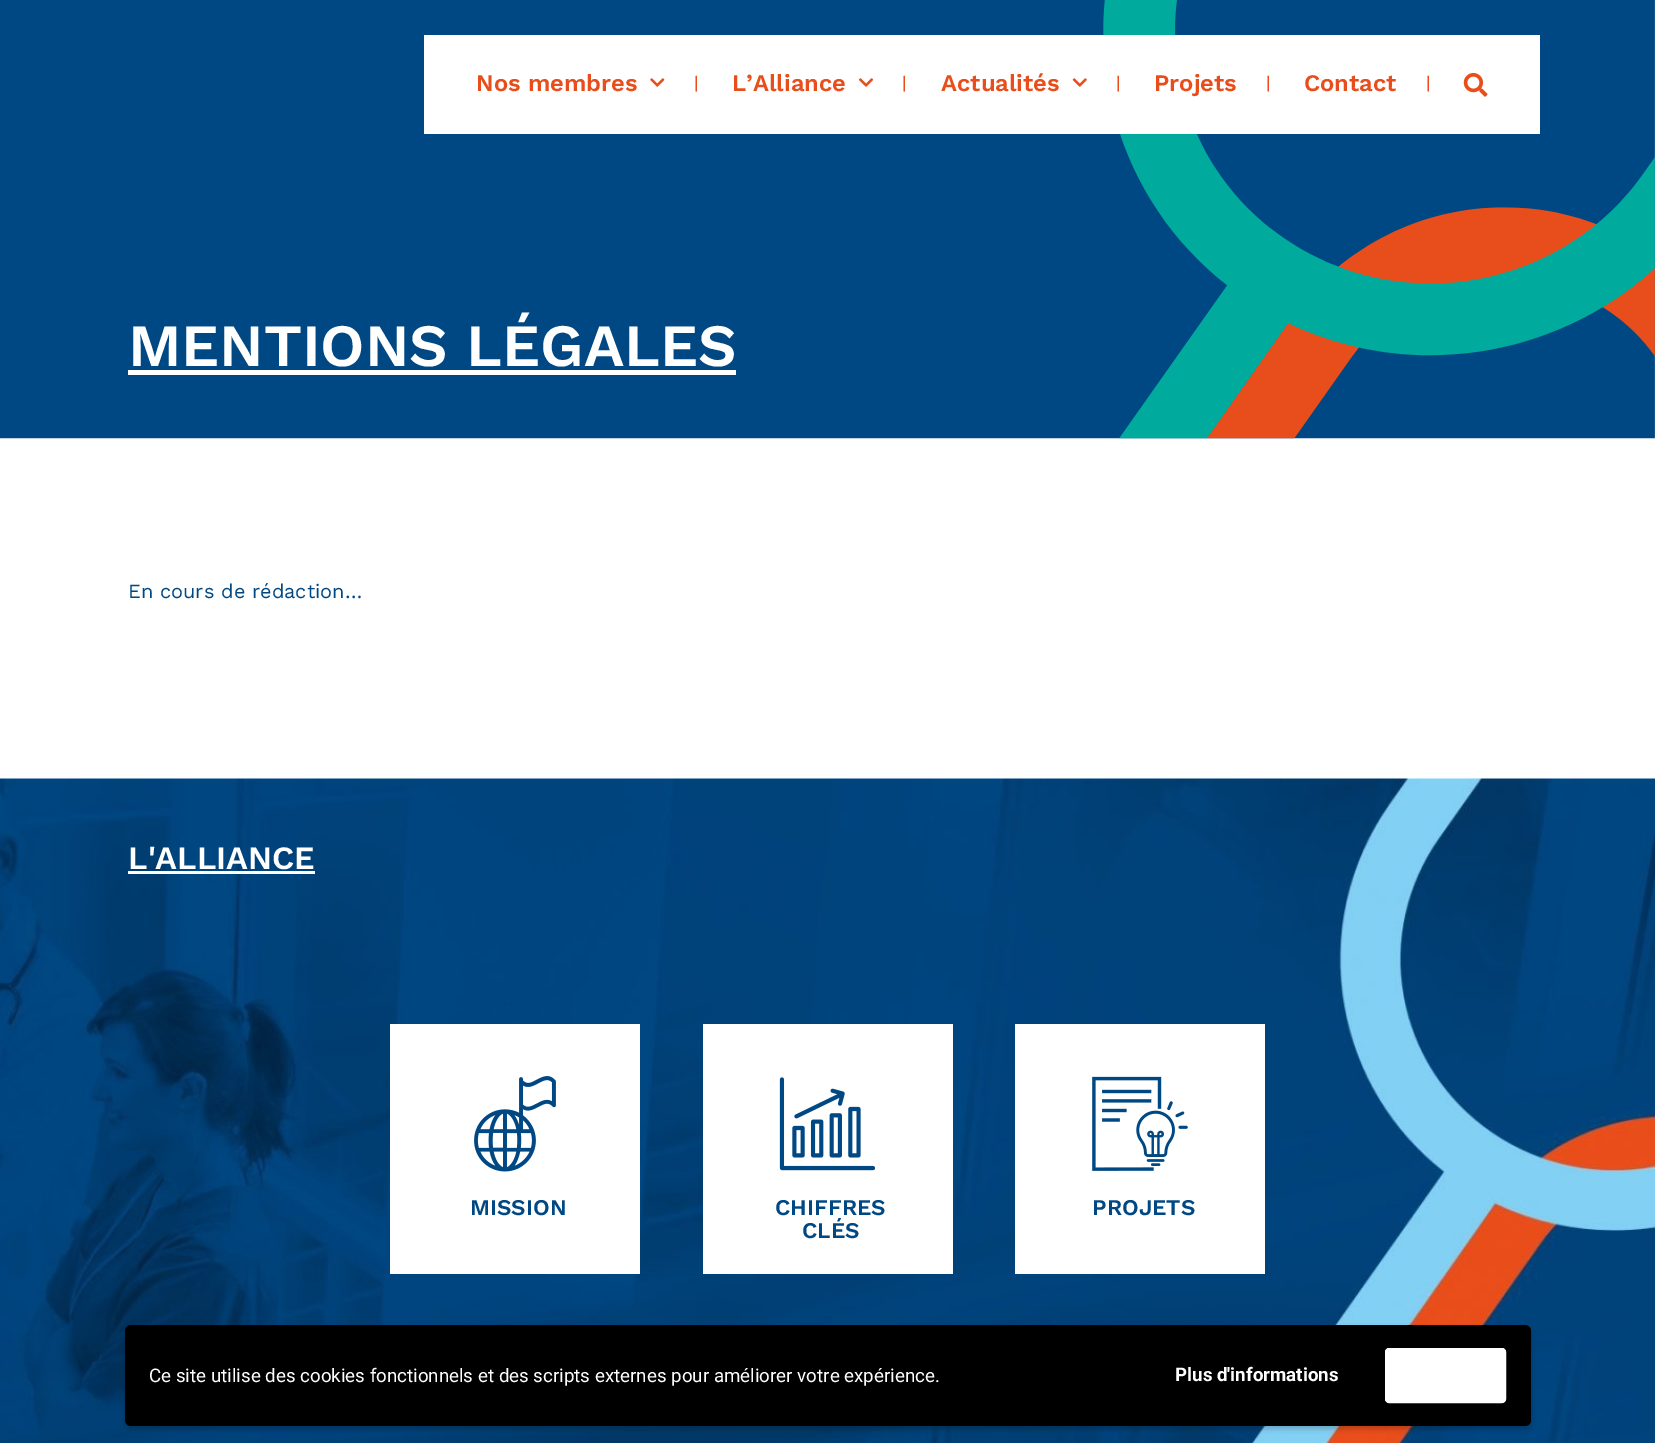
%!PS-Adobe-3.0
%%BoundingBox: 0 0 1655 1443
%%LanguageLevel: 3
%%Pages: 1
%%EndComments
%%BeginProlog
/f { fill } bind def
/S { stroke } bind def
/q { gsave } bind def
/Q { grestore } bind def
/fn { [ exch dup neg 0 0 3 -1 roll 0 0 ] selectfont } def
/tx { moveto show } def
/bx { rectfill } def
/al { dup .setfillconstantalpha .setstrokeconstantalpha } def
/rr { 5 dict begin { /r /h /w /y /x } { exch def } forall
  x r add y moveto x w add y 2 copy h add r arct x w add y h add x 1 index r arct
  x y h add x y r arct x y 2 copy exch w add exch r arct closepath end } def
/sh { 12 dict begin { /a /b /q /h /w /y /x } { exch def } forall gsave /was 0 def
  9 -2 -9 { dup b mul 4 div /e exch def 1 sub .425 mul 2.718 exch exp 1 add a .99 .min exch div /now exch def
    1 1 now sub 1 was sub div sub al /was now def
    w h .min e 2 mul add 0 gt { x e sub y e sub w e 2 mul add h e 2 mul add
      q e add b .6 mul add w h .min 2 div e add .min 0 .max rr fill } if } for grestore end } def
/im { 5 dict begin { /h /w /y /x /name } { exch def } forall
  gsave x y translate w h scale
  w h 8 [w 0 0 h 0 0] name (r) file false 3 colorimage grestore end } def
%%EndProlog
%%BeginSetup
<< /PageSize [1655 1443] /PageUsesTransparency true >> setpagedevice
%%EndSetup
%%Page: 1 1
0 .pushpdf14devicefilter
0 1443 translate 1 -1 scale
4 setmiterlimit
1 setgray
0 0 1655 1443 bx
(image4.raw) 0 0 1655 439 im
424 35 1116 99 bx
/WorkSans-SemiBold 23.75 fn
0.91 0.306 0.106 setrgbcolor
(Nos membres) 476 91 tx
(image0.raw) 650 78 15 9 im
/Roboto-Regular 18.75 fn
(|) 694 89 tx
/WorkSans-SemiBold 23.75 fn
(L’Alliance) 732 91 tx
(image1.raw) 859 78 15 9 im
/Roboto-Regular 18.75 fn
(|) 902 89 tx
/WorkSans-SemiBold 23.75 fn
(Actualités) 941 91 tx
(image2.raw) 1072 78 15 9 im
/Roboto-Regular 18.75 fn
(|) 1116 89 tx
/WorkSans-SemiBold 23.75 fn
(Projets) 1154 91 tx
/Roboto-Regular 18.75 fn
(|) 1266 89 tx
/WorkSans-SemiBold 23.75 fn
(Contact) 1304 91 tx
/Roboto-Regular 18.75 fn
(|) 1426 89 tx
(image3.raw) 1463 73 25 24 im
/WorkSans-SemiBold 60 fn
1 setgray
(MENTIONS LÉGALES) 128 366 tx
128 370 608 5 bx
/WorkSans-Regular 20 fn
0 0.282 0.518 setrgbcolor
(En cours de rédaction…) 128 598 tx
(image5.raw) 0 778 1655 665 im
/WorkSans-SemiBold 32.5 fn
1 setgray
(L'ALLIANCE) 128 869 tx
128 871 187 3 bx
390 1024 250 250 bx
(image6.raw) 474 1076 82 96 im
/WorkSans-SemiBold 22.5 fn
0 0.282 0.518 setrgbcolor
(MISSION) 470 1215 tx
1 setgray
703 1024 250 250 bx
(image7.raw) 779 1077 97 94 im
0 0.282 0.518 setrgbcolor
(CHIFFRES) 775 1215 tx
(CLÉS) 802 1238 tx
1 setgray
1015 1024 250 250 bx
(image8.raw) 1092 1076 96 95 im
0 0.282 0.518 setrgbcolor
(PROJETS) 1092 1215 tx
0 setgray
125 1328 1406 101 6 2.5 0.2 sh
125 1325 1406 101 6 rr f
/Roboto-Regular 18.75 fn
1 setgray
(Ce site utilise des cookies fonctionnels et des scripts externes pour améliorer votre expérience.) 149 1382 tx
/Roboto-Bold 18.75 fn
(Plus d'informations) 1175 1381 tx
1385.5 1348.5 120 54 3.5 rr q f Q
S
.poppdf14devicefilter showpage
%%EOF
